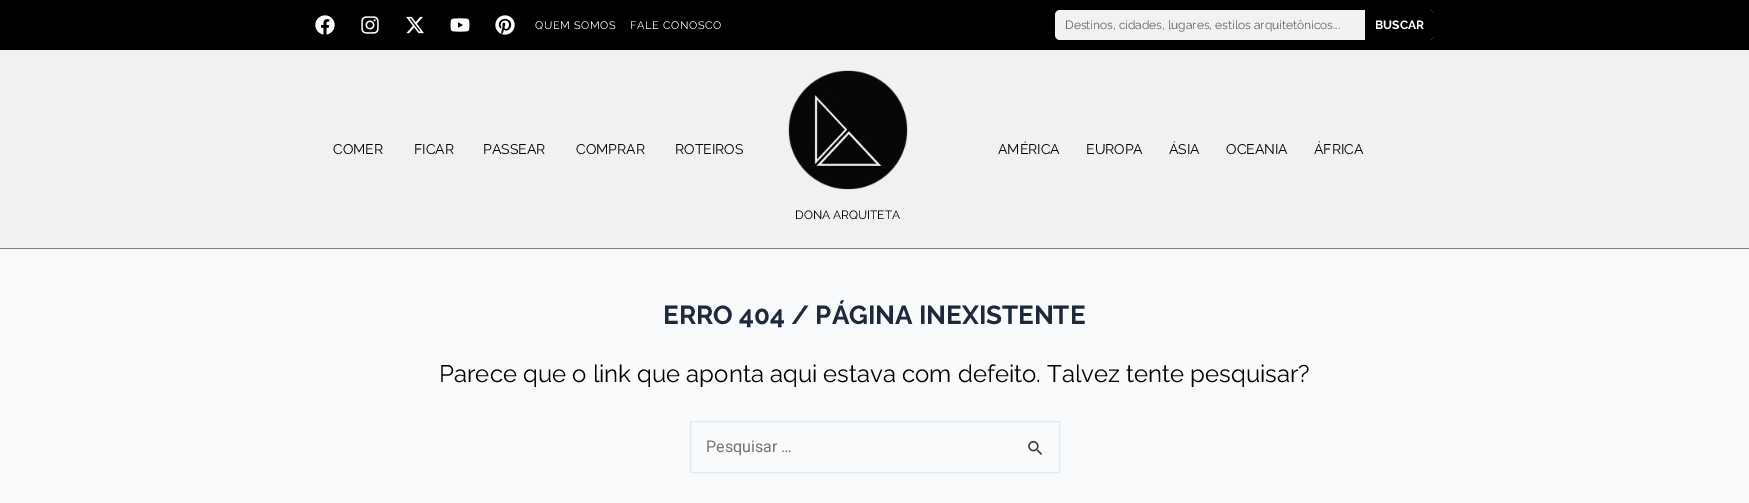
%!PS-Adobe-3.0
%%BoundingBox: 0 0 1749 503
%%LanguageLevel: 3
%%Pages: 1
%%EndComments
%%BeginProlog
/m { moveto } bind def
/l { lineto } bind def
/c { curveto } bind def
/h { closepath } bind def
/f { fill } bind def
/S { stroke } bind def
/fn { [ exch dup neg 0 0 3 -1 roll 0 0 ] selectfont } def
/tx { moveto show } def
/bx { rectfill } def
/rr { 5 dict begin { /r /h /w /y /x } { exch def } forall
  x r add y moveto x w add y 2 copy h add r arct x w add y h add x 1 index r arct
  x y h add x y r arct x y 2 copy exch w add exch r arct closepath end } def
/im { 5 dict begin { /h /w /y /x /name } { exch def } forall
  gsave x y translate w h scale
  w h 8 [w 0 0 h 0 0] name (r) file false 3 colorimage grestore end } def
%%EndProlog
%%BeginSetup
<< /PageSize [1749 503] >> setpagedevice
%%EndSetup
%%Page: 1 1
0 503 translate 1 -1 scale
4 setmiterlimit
0.976 0.98 0.984 setrgbcolor
0 0 1749 503 bx
0 setgray
0 0 1749 50 bx
(image0.raw) 315 15 20 20 im
(image1.raw) 361 16 18 18 im
(image2.raw) 406 16 18 18 im
(image3.raw) 450 18 20 14 im
(image4.raw) 495 15 20 20 im
/Raleway-Regular 11 fn
1 setgray
535 29 m 1 0 32 0.5 0 (QUEM SOMOS) awidthshow
630 29 m 1 0 32 0.5 0 (FALE CONOSCO) awidthshow
0.945 0.949 0.953 setrgbcolor
1055 10 379 30 5 rr f
/Raleway-Regular 12 fn
0.376 0.38 0.38 setrgbcolor
(Destinos, cidades, lugares, estilos arquitetônicos...) 1065 29 tx
0 setgray
1365 10 m 1429 10 l 1432 10 1434 12 1434 15 c 1434 35 l 1434 38 1432 40 1429 40 c 1365 40 l h f
/Raleway-Bold 12 fn
1 setgray
(BUSCAR) 1375 29 tx
0.945 setgray
0 50 1749 198 bx
0.502 setgray
0 248 1749 1 bx
/Raleway-Regular 14 fn
0 setgray
(COMER) 333 154 tx
(FICAR) 414 154 tx
(PASSEAR) 483 154 tx
(COMPRAR) 576 154 tx
(ROTEIROS) 675 154 tx
(AMÉRICA) 998 154 tx
(EUROPA) 1086 154 tx
(ÁSIA) 1169 154 tx
(OCEANIA) 1226 154 tx
(ÁFRICA) 1314 154 tx
(image5.raw) 788 70 120 120 im
/Raleway-Regular 12 fn
(DONA ARQUITETA) 795 219 tx
/Raleway-Bold 26 fn
0.118 0.161 0.231 setrgbcolor
(ERRO 404 / PÁGINA INEXISTENTE) 663 324 tx
/Raleway-Regular 24 fn
0 setgray
(Parece que o link que aponta aqui estava com defeito. Talvez tente pesquisar?) 439 382 tx
0.886 0.91 0.941 setrgbcolor
690.5 421.5 369 51 1.5 rr S
/Roboto-Regular 16 fn
0.459 setgray
(Pesquisar …) 706 452 tx
(image6.raw) 1028 441 15 14 im
showpage
%%EOF
